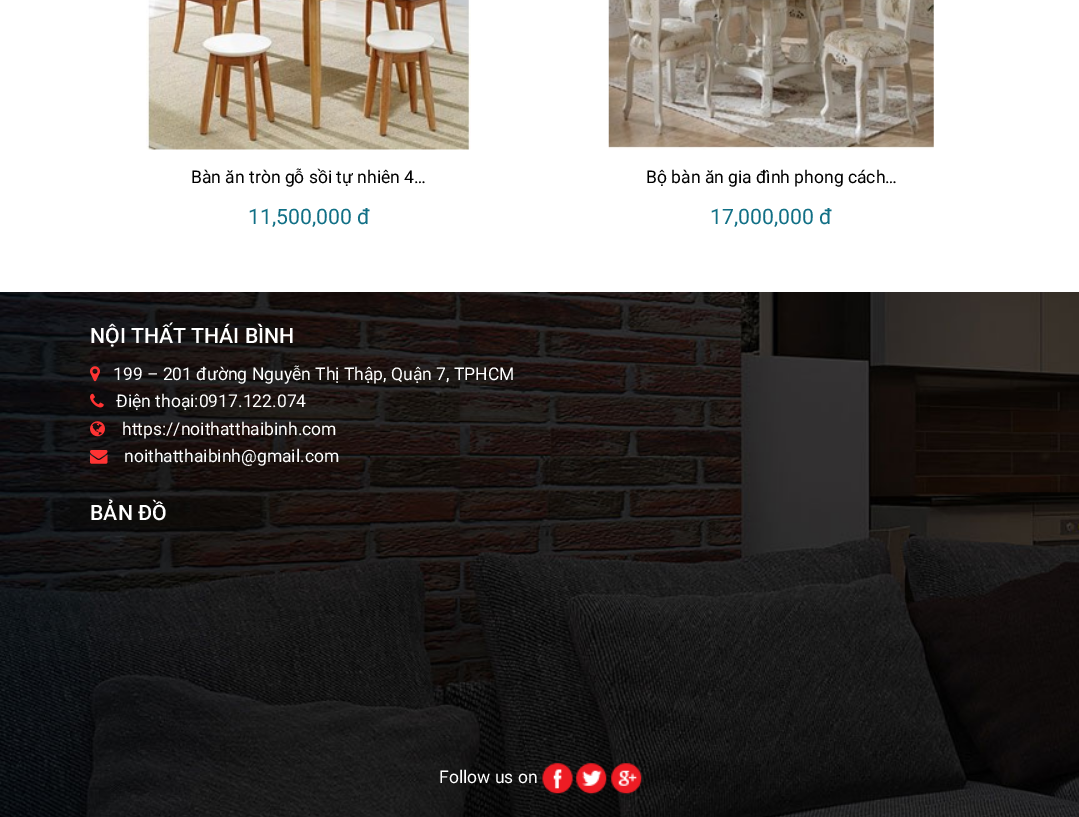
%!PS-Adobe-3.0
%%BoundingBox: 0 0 1079 817
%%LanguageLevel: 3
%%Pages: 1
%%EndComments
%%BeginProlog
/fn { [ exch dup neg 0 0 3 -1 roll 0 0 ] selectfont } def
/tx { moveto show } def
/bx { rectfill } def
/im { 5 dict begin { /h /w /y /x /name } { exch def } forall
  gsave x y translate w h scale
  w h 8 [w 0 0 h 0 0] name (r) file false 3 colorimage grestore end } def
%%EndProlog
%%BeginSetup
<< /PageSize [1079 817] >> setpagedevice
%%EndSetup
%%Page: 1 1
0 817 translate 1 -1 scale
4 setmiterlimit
1 setgray
0 0 1079 817 bx
(image0.raw) 146 0 325 150 im
/Roboto-Regular 17.5 fn
0 setgray
(Bàn ăn tròn gỗ sồi tự nhiên 4…) 191 183 tx
/Roboto-Regular 21.25 fn
0.063 0.435 0.522 setrgbcolor
(11,500,000 đ) 248 224 tx
(image1.raw) 608 0 326 150 im
/Roboto-Regular 17.5 fn
0 setgray
(Bộ bàn ăn gia đình phong cách…) 646 183 tx
/Roboto-Regular 21.25 fn
0.063 0.435 0.522 setrgbcolor
(17,000,000 đ) 710 224 tx
(image2.raw) 0 292 1079 525 im
/Roboto-Medium 21.25 fn
1 setgray
(NỘI THẤT THÁI BÌNH) 90 343 tx
(image3.raw) 90 366 10 16 im
/Roboto-Regular 17.5 fn
(199 – 201 đường Nguyễn Thị Thập, Quận 7, TPHCM) 113 380 tx
(image4.raw) 90 393 14 15 im
(Điện thoại:0917.122.074) 116 407 tx
(image5.raw) 90 421 15 16 im
(https://noithatthaibinh.com) 122 435 tx
(image6.raw) 90 450 18 14 im
(noithatthaibinh@gmail.com) 124 462 tx
/Roboto-Medium 21.25 fn
(BẢN ĐỒ) 90 520 tx
/Roboto-Regular 17.5 fn
(Follow us on) 439 783 tx
(image7.raw) 542 763 31 31 im
(image8.raw) 576 763 31 31 im
(image9.raw) 611 763 31 31 im
showpage
%%EOF
